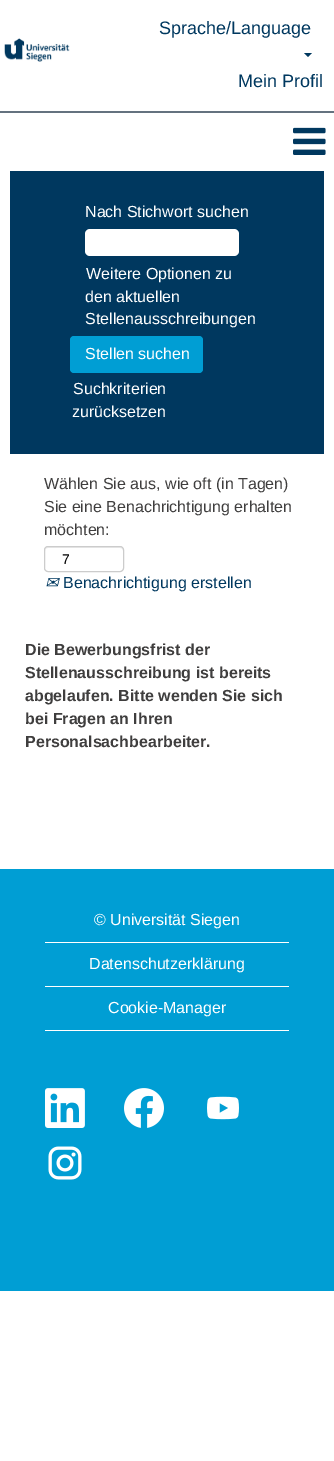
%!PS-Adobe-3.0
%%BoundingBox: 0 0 334 1461
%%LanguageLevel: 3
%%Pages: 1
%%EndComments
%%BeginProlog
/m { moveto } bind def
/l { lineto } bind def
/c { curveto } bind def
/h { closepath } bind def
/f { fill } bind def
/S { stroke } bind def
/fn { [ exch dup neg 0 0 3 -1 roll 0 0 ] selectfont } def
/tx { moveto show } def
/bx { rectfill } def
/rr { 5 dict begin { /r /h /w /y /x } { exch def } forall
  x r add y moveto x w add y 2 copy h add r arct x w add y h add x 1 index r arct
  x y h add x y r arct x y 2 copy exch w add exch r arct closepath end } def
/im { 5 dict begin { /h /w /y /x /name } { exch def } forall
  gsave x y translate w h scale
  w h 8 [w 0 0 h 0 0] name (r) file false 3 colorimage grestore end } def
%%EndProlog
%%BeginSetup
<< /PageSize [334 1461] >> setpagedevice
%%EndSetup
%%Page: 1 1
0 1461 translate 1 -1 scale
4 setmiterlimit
1 setgray
0 0 334 1461 bx
(image0.raw) 4 38 66 24 im
/LiberationSans-Regular 18 fn
0 0.22 0.373 setrgbcolor
(Sprache/Language) 159 34 tx
304 53 m 312 53 l 308 57 l h f
(Mein Profil) 238 87 tx
0.392 0.447 0.498 setrgbcolor
0 111 334 2 bx
(image1.raw) 293 127 33 28 im
0 0.22 0.373 setrgbcolor
10 171 314 283 bx
/LiberationSans-Regular 16 fn
1 setgray
(Nach Stichwort suchen) 85 217 tx
85 229 154 27 5 rr f
(Weitere Optionen zu) 86 279 tx
(den aktuellen) 85 302 tx
(Stellenausschreibungen) 85 324 tx
0 0.62 0.831 setrgbcolor
70 336 133 37 4 rr f
1 setgray
(Stellen suchen) 85 359 tx
(Suchkriterien) 73 394 tx
(zurücksetzen) 72 417 tx
0.247 0.243 0.243 setrgbcolor
(Wählen Sie aus, wie oft \(in Tagen\)) 44 489 tx
(Sie eine Benachrichtigung erhalten) 44 512 tx
(möchten:) 44 535 tx
0.925 setgray
48 548 m 120 548 l 122 548 123 549 123 551 c 123 544 112 547 108 547 c 60 547 l 56 547 45 544 45 551 c 45 549 46 548 48 548 c h f
0.8 setgray
44.5 546.5 79 25 3.5 rr S
/LiberationSans-Regular 14 fn
0 setgray
(7) 62 564 tx
/DejaVuSans-Italic 16 fn
0 0.22 0.373 setrgbcolor
(✉) 45 588 tx
/LiberationSans-Regular 16 fn
(Benachrichtigung erstellen) 63 588 tx
/LiberationSans-Bold 16 fn
0.247 0.243 0.243 setrgbcolor
(Die Bewerbungsfrist der) 25 655 tx
(Stellenausschreibung ist bereits) 25 678 tx
(abgelaufen. Bitte wenden Sie sich) 25 701 tx
(bei Fragen an Ihren) 25 724 tx
(Personalsachbearbeiter.) 25 747 tx
0 0.62 0.831 setrgbcolor
0 869 334 422 bx
1 setgray
45 942 244 1 bx
/LiberationSans-Regular 16 fn
(© Universität Siegen) 94 925 tx
45 986 244 1 bx
(Datenschutzerklärung) 89 969 tx
45 1030 244 1 bx
(Cookie-Manager) 108 1013 tx
(image2.raw) 45 1088 40 40 im
(image3.raw) 124 1088 40 40 im
(image4.raw) 207 1096 32 24 im
(image5.raw) 48 1146 34 34 im
showpage
%%EOF
